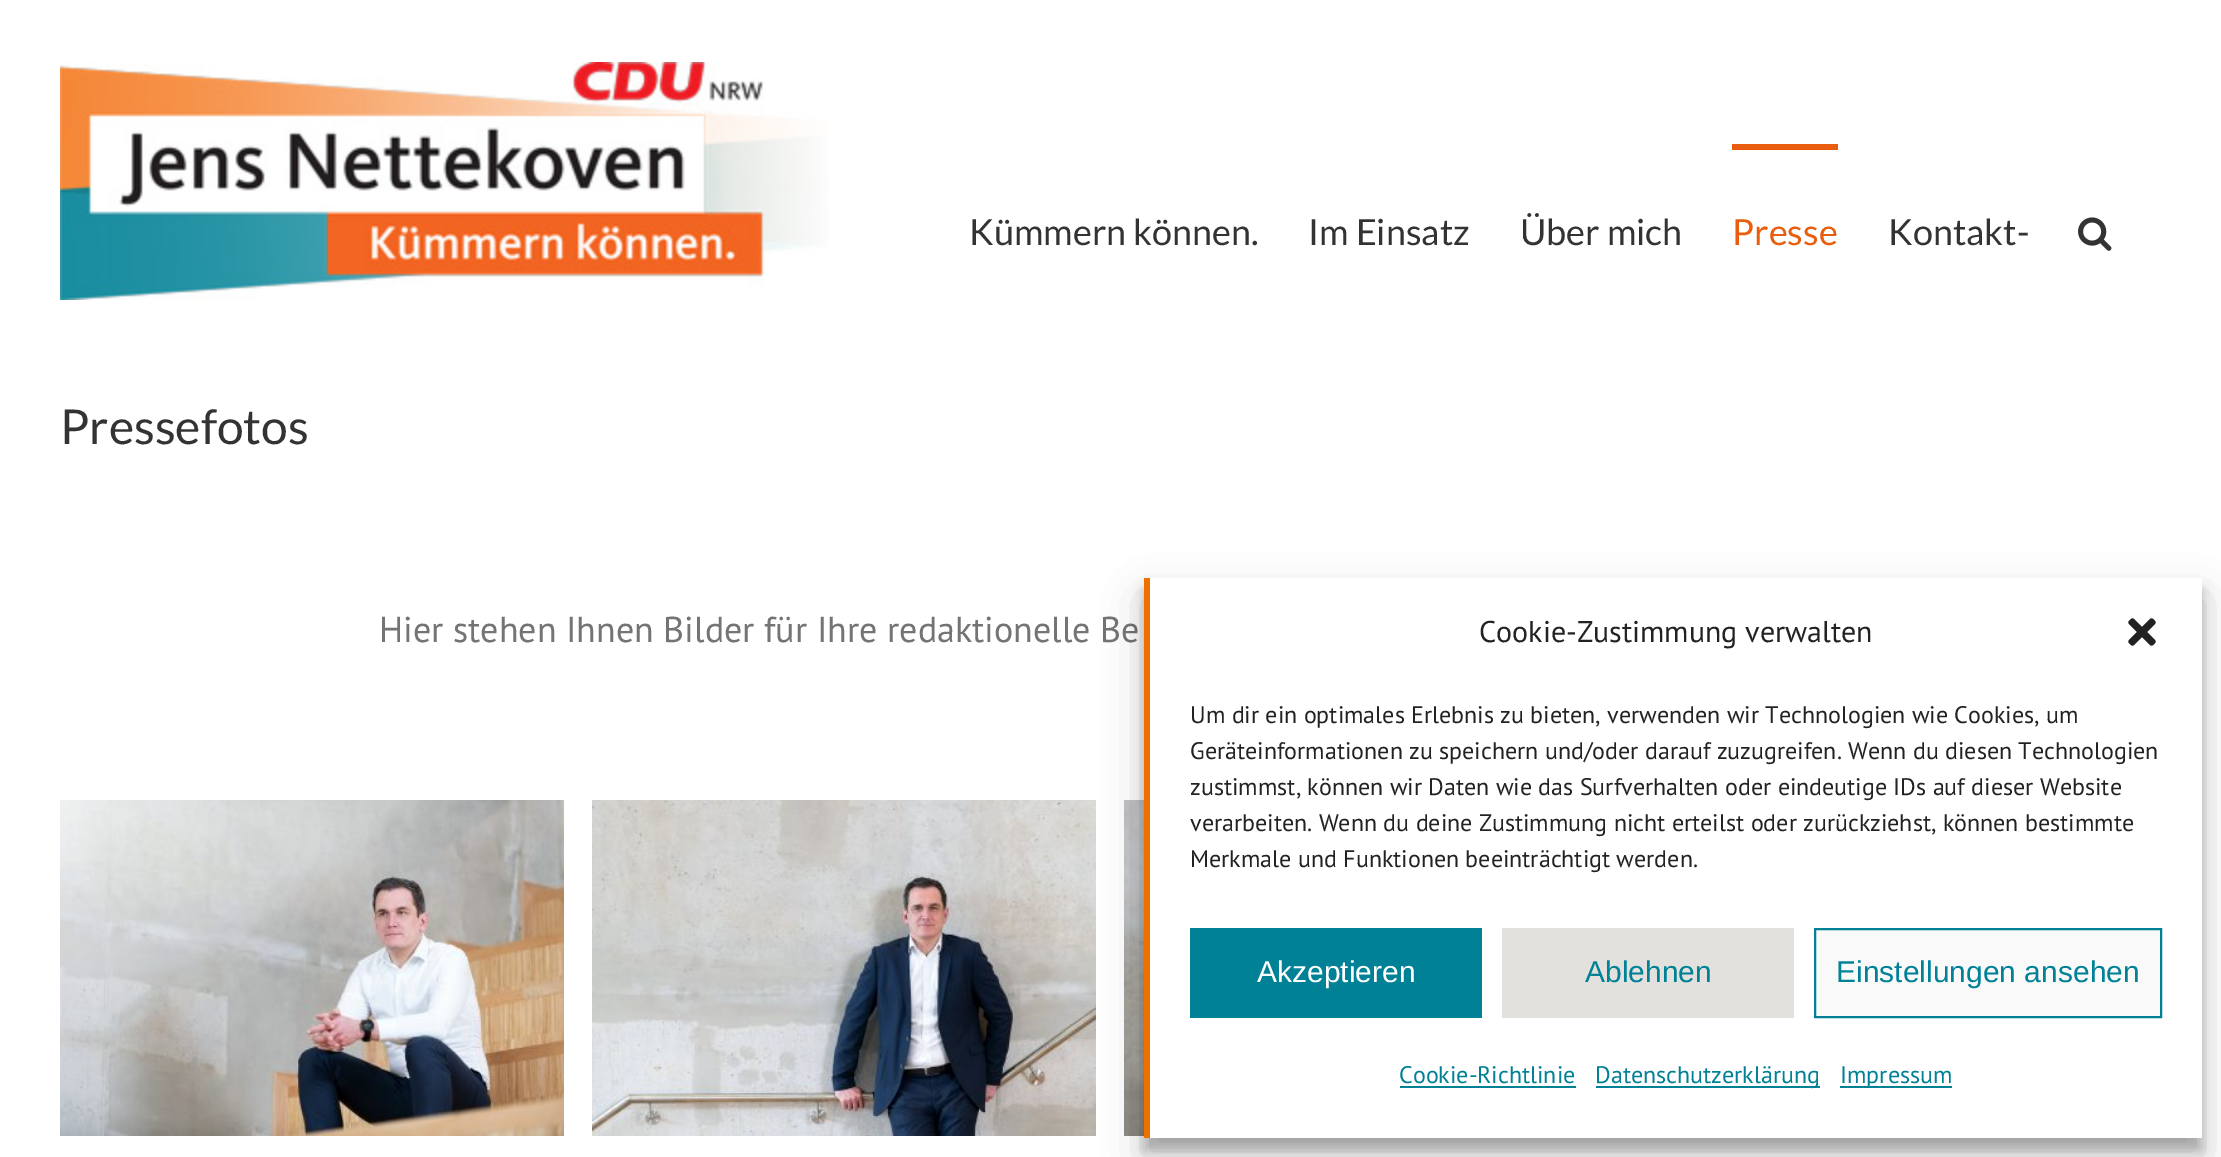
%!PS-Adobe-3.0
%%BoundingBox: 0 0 2221 1157
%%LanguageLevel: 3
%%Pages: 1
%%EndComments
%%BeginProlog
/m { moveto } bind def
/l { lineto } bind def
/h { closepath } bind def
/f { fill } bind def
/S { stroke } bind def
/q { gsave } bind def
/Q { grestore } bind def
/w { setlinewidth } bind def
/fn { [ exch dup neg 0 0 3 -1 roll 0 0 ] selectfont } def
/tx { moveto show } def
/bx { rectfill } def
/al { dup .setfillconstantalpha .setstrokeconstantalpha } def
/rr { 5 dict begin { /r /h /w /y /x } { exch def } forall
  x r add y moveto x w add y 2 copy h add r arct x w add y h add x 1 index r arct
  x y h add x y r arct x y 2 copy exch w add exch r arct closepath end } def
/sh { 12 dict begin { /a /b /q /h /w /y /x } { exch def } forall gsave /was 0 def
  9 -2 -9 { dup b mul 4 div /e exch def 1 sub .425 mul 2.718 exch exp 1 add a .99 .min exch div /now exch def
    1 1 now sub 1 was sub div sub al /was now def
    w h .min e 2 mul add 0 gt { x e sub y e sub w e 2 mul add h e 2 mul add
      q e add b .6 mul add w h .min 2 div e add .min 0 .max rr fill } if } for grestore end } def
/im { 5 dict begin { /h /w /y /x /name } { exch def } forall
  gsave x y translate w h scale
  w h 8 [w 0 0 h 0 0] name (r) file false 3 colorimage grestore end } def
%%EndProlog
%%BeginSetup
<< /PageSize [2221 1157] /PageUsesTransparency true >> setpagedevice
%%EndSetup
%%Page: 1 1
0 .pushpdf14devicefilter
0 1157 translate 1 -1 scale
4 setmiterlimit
1 setgray
0 0 2221 1157 bx
(image0.raw) 60 62 768 238 im
/Lato-Regular 36 fn
0.2 setgray
(Kümmern können.) 969 245 tx
(Im Einsatz) 1308 245 tx
(Über mich) 1520 245 tx
0.914 0.365 0.059 setrgbcolor
1732 144 106 6 bx
(Presse) 1732 245 tx
0.2 setgray
(Kontakt-) 1888 245 tx
(image1.raw) 2078 217 34 34 im
/Lato-Regular 48 fn
(Pressefotos) 60 444 tx
/PTSans-Regular 36 fn
0.455 setgray
(Hier stehen Ihnen Bilder für Ihre redaktionelle Be) 379 642 tx
(image2.raw) 60 800 504 336 im
(image3.raw) 592 800 504 336 im
(image4.raw) 1124 800 20 336 im
0 setgray
1144 590 1058 560 0 6 0.23 sh
1144 598 1058 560 0 20 0.19 sh
1 setgray
1150 578 1052 560 bx
0.933 0.443 0 setrgbcolor
1144 578 6 560 bx
/PTSans-Regular 30 fn
0.133 setgray
(Cookie-Zustimmung verwalten) 1479 642 tx
(image5.raw) 2128 618 28 28 im
/PTSans-Regular 24 fn
(Um dir ein optimales Erlebnis zu bieten, verwenden wir Technologien wie Cookies, um) 1190 723 tx
(Geräteinformationen zu speichern und/oder darauf zuzugreifen. Wenn du diesen Technologien) 1190 759 tx
(zustimmst, können wir Daten wie das Surfverhalten oder eindeutige IDs auf dieser Website) 1190 795 tx
(verarbeiten. Wenn du deine Zustimmung nicht erteilst oder zurückziehst, können bestimmte) 1190 831 tx
(Merkmale und Funktionen beeinträchtigt werden.) 1190 867 tx
0 0.506 0.584 setrgbcolor
1190 928 292 90 bx
/LiberationSans-Regular 30 fn
1 setgray
(Akzeptieren) 1257 982 tx
0.886 0.882 0.867 setrgbcolor
1502 928 292 90 bx
0 0.506 0.584 setrgbcolor
(Ablehnen) 1585 982 tx
0.976 setgray
1815 929 m 2161 929 l 2161 1017 l 1815 1017 l h q f Q
0 0.506 0.584 setrgbcolor
2 w
S
(Einstellungen ansehen) 1836 982 tx
/PTSans-Regular 24 fn
(Cookie-Richtlinie) 1399 1083 tx
1400 1086 176 2 bx
1596 1086 224 2 bx
(Datenschutzerklärung) 1595 1083 tx
1840 1086 112 2 bx
(Impressum) 1840 1083 tx
.poppdf14devicefilter showpage
%%EOF
